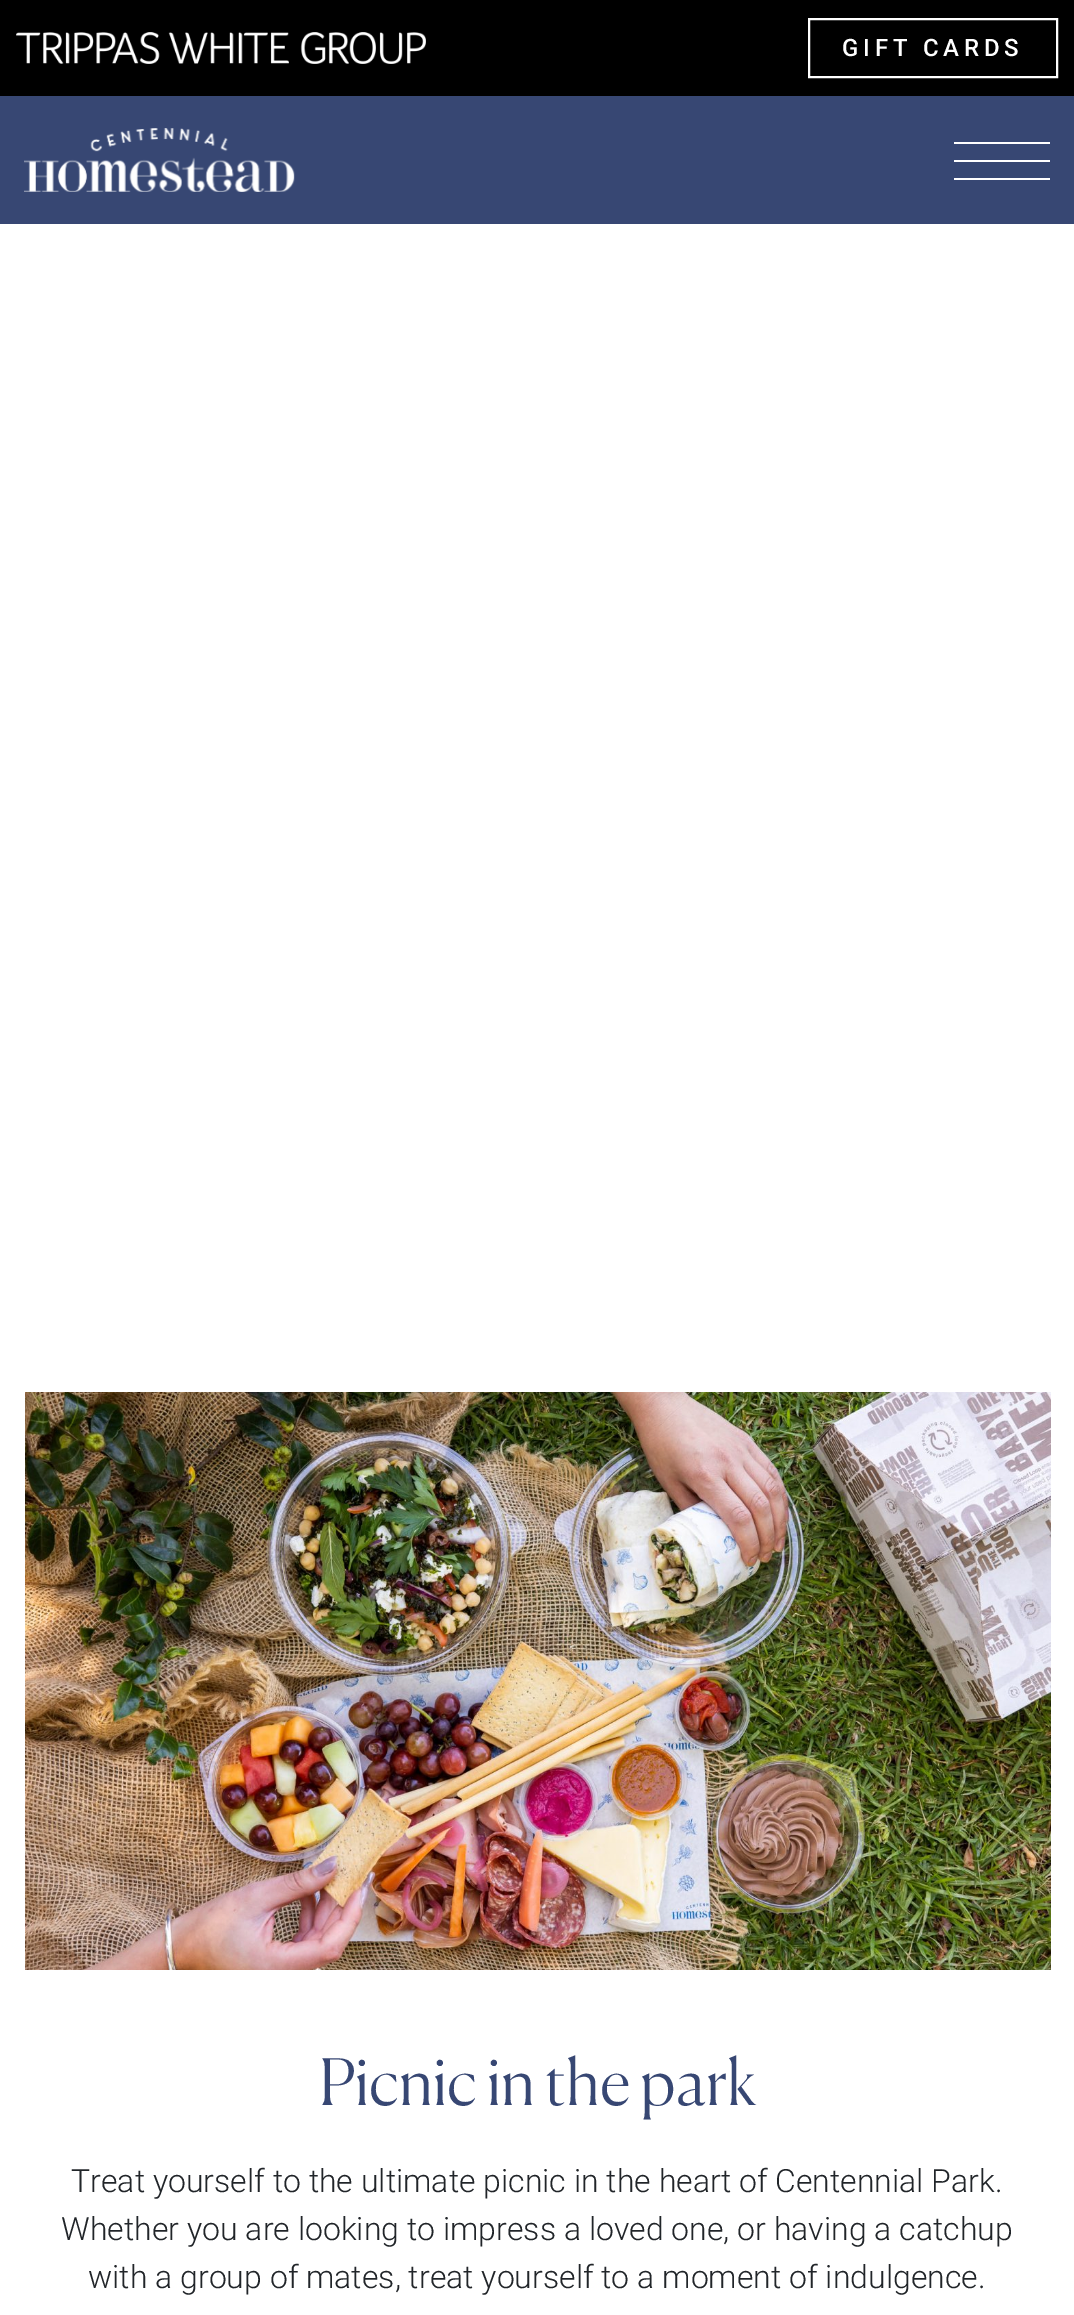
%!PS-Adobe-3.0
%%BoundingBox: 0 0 1074 2315
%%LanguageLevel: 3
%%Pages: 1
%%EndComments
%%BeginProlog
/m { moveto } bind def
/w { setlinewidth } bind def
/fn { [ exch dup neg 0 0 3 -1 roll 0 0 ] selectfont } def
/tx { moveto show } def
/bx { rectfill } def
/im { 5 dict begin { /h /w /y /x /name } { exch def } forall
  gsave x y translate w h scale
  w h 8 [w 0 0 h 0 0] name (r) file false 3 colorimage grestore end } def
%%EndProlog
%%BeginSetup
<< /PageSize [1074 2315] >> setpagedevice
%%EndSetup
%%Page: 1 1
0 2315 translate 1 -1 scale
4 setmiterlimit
1 setgray
0 0 1074 2315 bx
0 setgray
0 0 1074 96 bx
(image0.raw) 16 32 410 32 im
1 setgray
2 w
809 19 248 58 rectstroke
/Roboto-Medium 24 fn
842 56 m 4.75 0 (GIFT CARDS) ashow
0.216 0.278 0.451 setrgbcolor
0 96 1074 128 bx
(image1.raw) 24 128 271 64 im
1 setgray
954 142 96 2 bx
954 160 96 2 bx
954 178 96 2 bx
(image2.raw) 25 1392 1026 578 im
/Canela-Light 64 fn
0.216 0.278 0.451 setrgbcolor
(Picnic in the park) 319 2105 tx
/Roboto-Light 32 fn
0.129 0.145 0.161 setrgbcolor
(Treat yourself to the ultimate picnic in the heart of Centennial Park.) 71 2192 tx
(Whether you are looking to impress a loved one, or having a catchup) 61 2240 tx
(with a group of mates, treat yourself to a moment of indulgence.) 88 2288 tx
showpage
%%EOF
